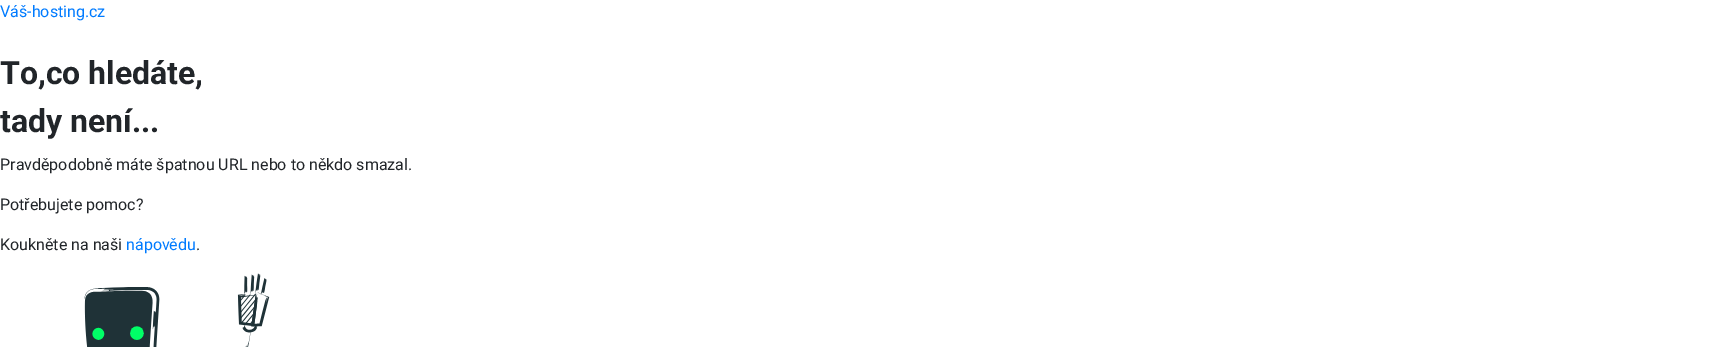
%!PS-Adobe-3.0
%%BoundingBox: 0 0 1719 347
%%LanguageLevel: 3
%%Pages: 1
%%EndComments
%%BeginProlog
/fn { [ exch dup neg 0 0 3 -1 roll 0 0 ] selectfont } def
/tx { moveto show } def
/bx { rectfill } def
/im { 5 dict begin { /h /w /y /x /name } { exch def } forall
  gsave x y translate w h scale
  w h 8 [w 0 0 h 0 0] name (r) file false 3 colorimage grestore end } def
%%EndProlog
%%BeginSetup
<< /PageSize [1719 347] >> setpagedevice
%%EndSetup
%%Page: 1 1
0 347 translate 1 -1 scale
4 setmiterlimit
1 setgray
0 0 1719 347 bx
/Roboto-Regular 16 fn
0 0.482 1 setrgbcolor
(Váš-hosting.cz) 0 17 tx
/Roboto-Bold 32 fn
0.129 0.145 0.161 setrgbcolor
(To,co hledáte,) 0 84 tx
(tady není...) 0 132 tx
/Roboto-Regular 16 fn
(Pravděpodobně máte špatnou URL nebo to někdo smazal.) 0 170 tx
(Potřebujete pomoc?) 0 210 tx
(Koukněte na naši) 0 250 tx
0 0.482 1 setrgbcolor
(nápovědu) 126 250 tx
0.129 0.145 0.161 setrgbcolor
(.) 196 250 tx
(image0.raw) 84 273 186 74 im
showpage
%%EOF
